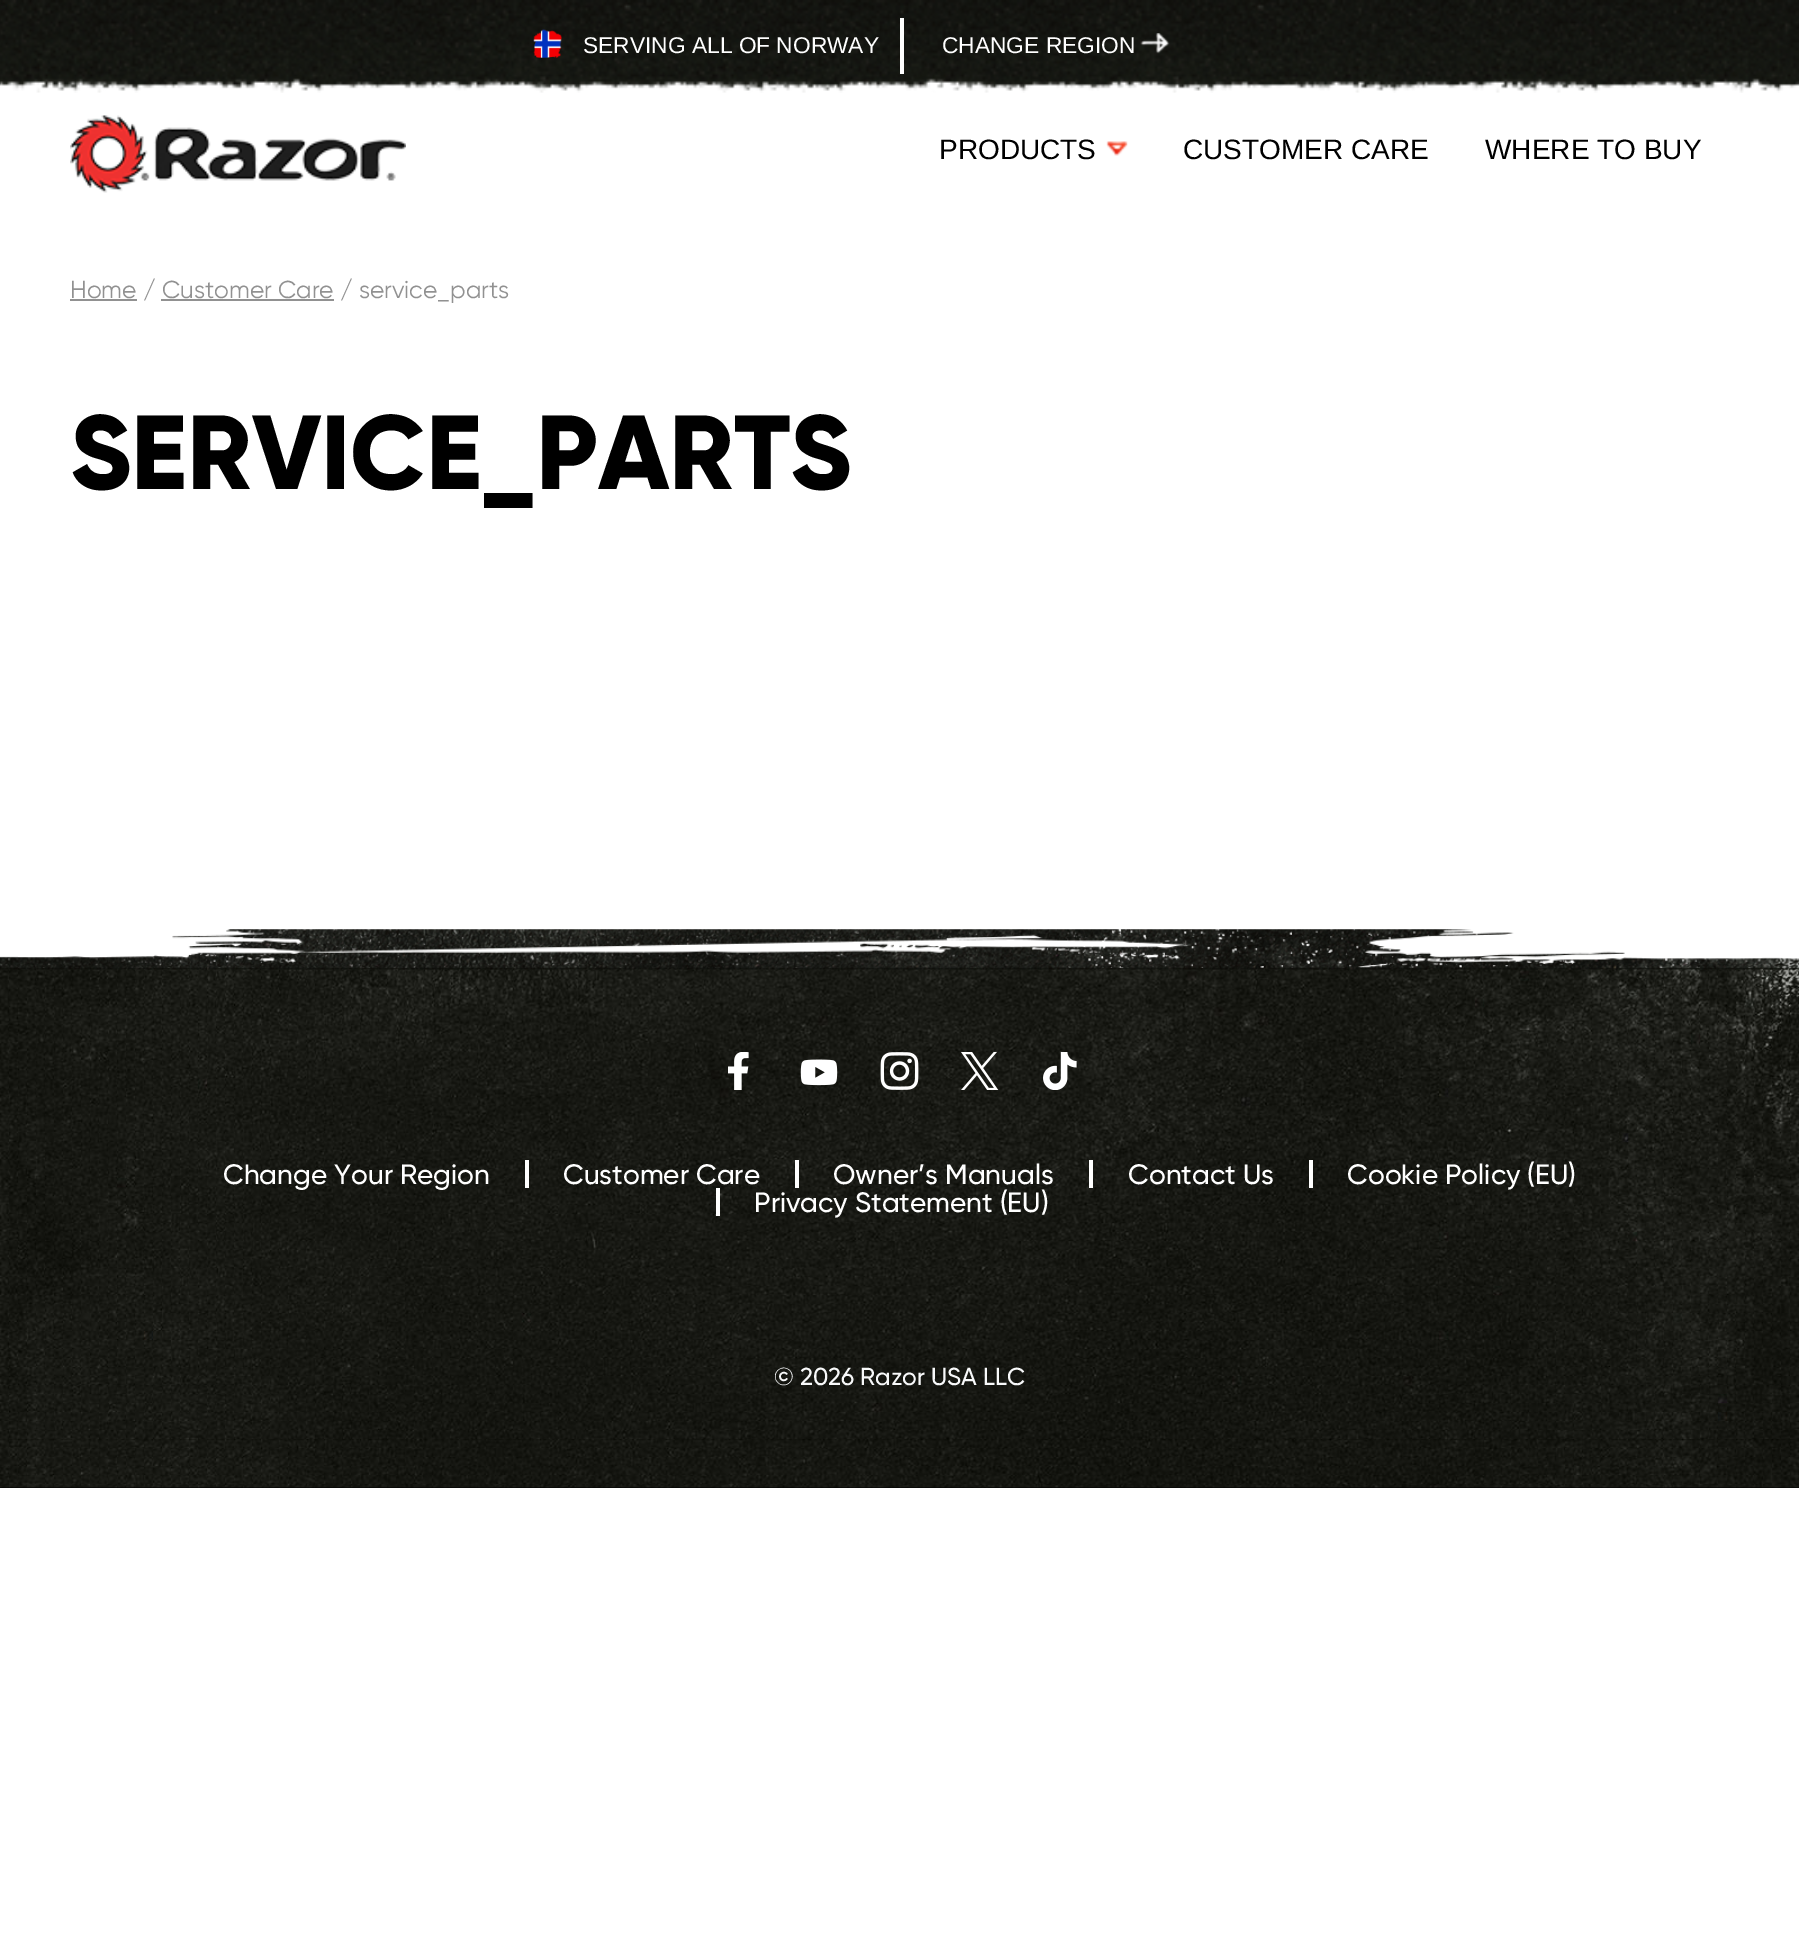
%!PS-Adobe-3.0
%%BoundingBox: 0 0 1799 1960
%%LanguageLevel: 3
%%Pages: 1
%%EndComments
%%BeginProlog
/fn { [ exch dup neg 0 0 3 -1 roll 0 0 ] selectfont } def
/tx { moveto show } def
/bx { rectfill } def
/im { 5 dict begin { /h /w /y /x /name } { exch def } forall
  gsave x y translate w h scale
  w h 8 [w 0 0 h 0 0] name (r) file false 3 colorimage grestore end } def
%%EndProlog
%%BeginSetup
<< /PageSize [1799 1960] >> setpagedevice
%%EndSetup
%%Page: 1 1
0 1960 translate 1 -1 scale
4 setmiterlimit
1 setgray
0 0 1799 1960 bx
(image0.raw) 0 0 1799 93 im
(image1.raw) 533 29 29 29 im
/LiberationSans-Regular 22.75 fn
(SERVING ALL OF NORWAY) 583 53 tx
900 18 4 56 bx
(CHANGE REGION) 942 53 tx
(image2.raw) 1140 33 30 21 im
(image3.raw) 70 115 336 78 im
/LiberationSans-Regular 28 fn
0 setgray
(PRODUCTS) 939 159 tx
(image4.raw) 1106 141 22 15 im
(CUSTOMER CARE) 1183 159 tx
(WHERE TO BUY) 1485 159 tx
0.569 setgray
70 299 67 2 bx
/Gilroy-Regular 24.5 fn
(Home / Customer Care / service_parts) 70 298 tx
161 299 173 2 bx
/Gilroy-ExtraBold 105 fn
0 setgray
(SERVICE_PARTS) 70 489 tx
0 1487 1799 1 bx
(image5.raw) 0 967 1799 521 im
(image6.raw) 0 929 1799 41 im
(image7.raw) 728 1052 21 38 im
(image8.raw) 800 1059 38 27 im
(image9.raw) 880 1052 39 38 im
(image10.raw) 961 1052 38 38 im
(image11.raw) 1043 1052 34 38 im
/Gilroy-Medium 28 fn
1 setgray
(Change Your Region) 223 1184 tx
525 1160 4 28 bx
(Customer Care) 563 1184 tx
795 1160 4 28 bx
(Owner’s Manuals) 833 1184 tx
1089 1160 4 28 bx
(Contact Us) 1128 1184 tx
1309 1160 4 28 bx
(Cookie Policy \(EU\)) 1347 1184 tx
716 1188 4 28 bx
(Privacy Statement \(EU\)) 754 1212 tx
/Gilroy-Medium 24.5 fn
0.973 0.976 0.98 setrgbcolor
(© 2026 Razor USA LLC) 774 1385 tx
showpage
%%EOF
